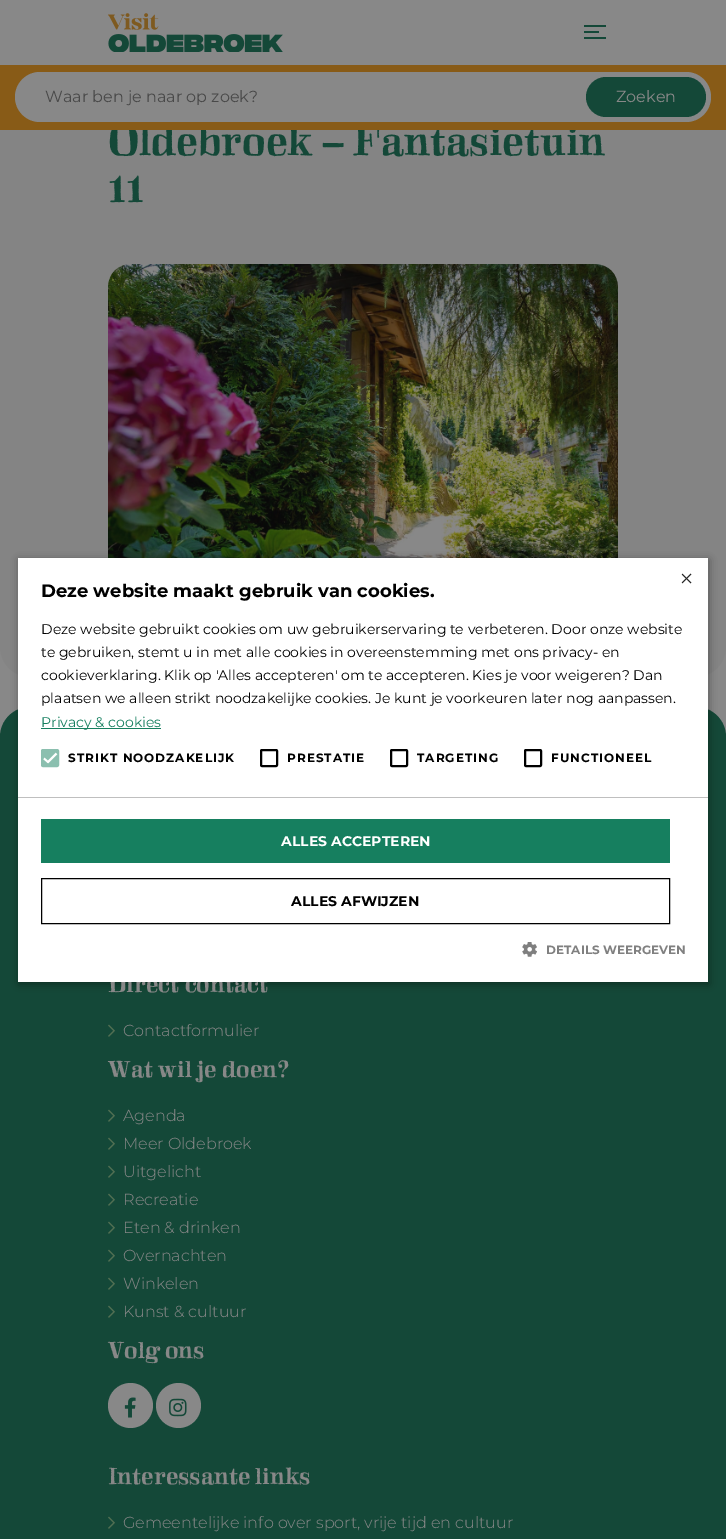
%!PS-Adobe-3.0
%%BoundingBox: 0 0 726 1539
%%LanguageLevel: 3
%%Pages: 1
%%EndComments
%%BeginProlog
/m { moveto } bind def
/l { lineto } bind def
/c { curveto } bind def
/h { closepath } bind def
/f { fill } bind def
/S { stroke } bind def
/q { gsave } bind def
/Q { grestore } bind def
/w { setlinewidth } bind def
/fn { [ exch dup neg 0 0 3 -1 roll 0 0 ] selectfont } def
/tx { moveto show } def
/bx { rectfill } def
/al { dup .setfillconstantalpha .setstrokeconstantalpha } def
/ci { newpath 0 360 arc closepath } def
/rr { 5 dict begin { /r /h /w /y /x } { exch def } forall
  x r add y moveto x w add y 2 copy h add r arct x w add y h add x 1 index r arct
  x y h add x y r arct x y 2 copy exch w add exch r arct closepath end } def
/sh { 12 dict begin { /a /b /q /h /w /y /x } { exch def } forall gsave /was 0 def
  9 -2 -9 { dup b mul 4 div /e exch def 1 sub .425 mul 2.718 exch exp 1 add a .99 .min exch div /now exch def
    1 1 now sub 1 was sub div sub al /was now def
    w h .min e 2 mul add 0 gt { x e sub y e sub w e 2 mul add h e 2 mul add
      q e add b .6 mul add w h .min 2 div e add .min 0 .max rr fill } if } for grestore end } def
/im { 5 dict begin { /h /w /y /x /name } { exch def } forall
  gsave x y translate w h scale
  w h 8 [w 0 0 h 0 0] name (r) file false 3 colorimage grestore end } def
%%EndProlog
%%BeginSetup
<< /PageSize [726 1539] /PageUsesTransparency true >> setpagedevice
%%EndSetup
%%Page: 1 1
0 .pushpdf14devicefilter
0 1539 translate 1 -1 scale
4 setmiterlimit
0.533 setgray
0 0 726 1539 bx
(image0.raw) 108 13 175 39 im
0.078 0.282 0.22 setrgbcolor
584 25 22 2 bx
584 31 15 2 bx
584 37 22 2 bx
0.518 setgray
0 65 m 726 65 l 726 647 l 726 663.5 712.5 677 696 677 c 30 677 l 13.5 677 0 663.5 0 647 c h f
/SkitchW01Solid-Regular 42 fn
0.078 0.282 0.22 setrgbcolor
(Oldebroek – Fantasietuin) 108 155 tx
0.533 0.357 0.09 setrgbcolor
0 65 726 65 bx
0.533 setgray
15 72 696 50 25 rr f
/Montserrat-Regular 16 fn
0.286 setgray
(Waar ben je naar op zoek?) 45 102 tx
0.078 0.282 0.22 setrgbcolor
586 77 120 40 20 rr f
0.533 setgray
(Zoeken) 616 102 tx
/SkitchW01Solid-Regular 42 fn
0.078 0.282 0.22 setrgbcolor
(11) 108 202 tx
(image1.raw) 108 264 510 294 im
0 707 726 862 30 rr f
0 setgray
19 560 690 424 0 4 0.35 sh
/SkitchW01Solid-Regular 24 fn
0.533 setgray
(Direct contact) 108 992 tx
1 setgray
18 558 690 424 bx
/Montserrat-Light 30 fn
0.149 setgray
(×) 678 589 tx
/Montserrat-Bold 18 fn
0 setgray
(Deze website maakt gebruik van cookies.) 41 597 tx
/Montserrat-Regular 14 fn
(Deze website gebruikt cookies om uw gebruikerservaring te verbeteren. Door onze website) 41 634 tx
(te gebruiken, stemt u in met alle cookies in overeenstemming met ons privacy- en) 41 657 tx
(cookieverklaring. Klik op 'Alles accepteren' om te accepteren. Kies je voor weigeren? Dan) 41 680 tx
(plaatsen we alleen strikt noodzakelijke cookies. Je kunt je voorkeuren later nog aanpassen.) 41 703 tx
0.086 0.498 0.373 setrgbcolor
41 728 120 1 bx
(Privacy & cookies) 41 727 tx
0.545 0.749 0.686 setrgbcolor
42 750 16 16 1 rr q f Q
2 w
S
1 setgray
1.8 w
44 758.5 m 48 762 l 56.5 753.5 l S
/Montserrat-Bold 12 fn
0 setgray
68 762 m 1 0 (STRIKT NOODZAKELIJK) ashow
2 w
261 750 16 16 1 rr S
287 762 m 1 0 (PRESTATIE) ashow
391 750 16 16 1 rr S
417 762 m 1 0 (TARGETING) ashow
525 750 16 16 1 rr S
551 762 m 1 0 (FUNCTIONEEL) ashow
0.749 setgray
18 797 690 1 bx
0.086 0.498 0.373 setrgbcolor
41 819 629 44 bx
/Montserrat-Bold 14 fn
1 setgray
(ALLES ACCEPTEREN) 281 846 tx
0 setgray
1 w
41.5 878.5 628 45 rectstroke
(ALLES AFWIJZEN) 291 906 tx
(image2.raw) 522 942 15 15 im
/Montserrat-Bold 12 fn
0.502 setgray
(DETAILS WEERGEVEN) 546 954 tx
(image3.raw) 108 1024 7 13 im
/Montserrat-Light 16 fn
0.533 setgray
(Contactformulier) 123 1036 tx
/SkitchW01Solid-Regular 24 fn
(Wat wil je doen?) 108 1077 tx
(image3.raw) 108 1109 7 13 im
/Montserrat-Light 16 fn
(Agenda) 123 1121 tx
(image3.raw) 108 1137 7 13 im
(Meer Oldebroek) 123 1149 tx
(image3.raw) 108 1165 7 13 im
(Uitgelicht) 123 1177 tx
(image3.raw) 108 1193 7 13 im
(Recreatie) 123 1205 tx
(image3.raw) 108 1221 7 13 im
(Eten & drinken) 123 1233 tx
(image3.raw) 108 1249 7 13 im
(Overnachten) 123 1261 tx
(image3.raw) 108 1277 7 13 im
(Winkelen) 123 1289 tx
(image3.raw) 108 1305 7 13 im
(Kunst & cultuur) 123 1317 tx
/SkitchW01Solid-Regular 24 fn
(Volg ons) 108 1358 tx
130.5 1405.5 22.5 ci f
(image4.raw) 124 1397 12 21 im
178.5 1405.5 22.5 ci f
(image5.raw) 169 1398 18 19 im
(Interessante links) 108 1484 tx
(image3.raw) 108 1516 7 13 im
/Montserrat-Light 16 fn
(Gemeentelijke info over sport, vrije tijd en cultuur) 123 1528 tx
.poppdf14devicefilter showpage
%%EOF
